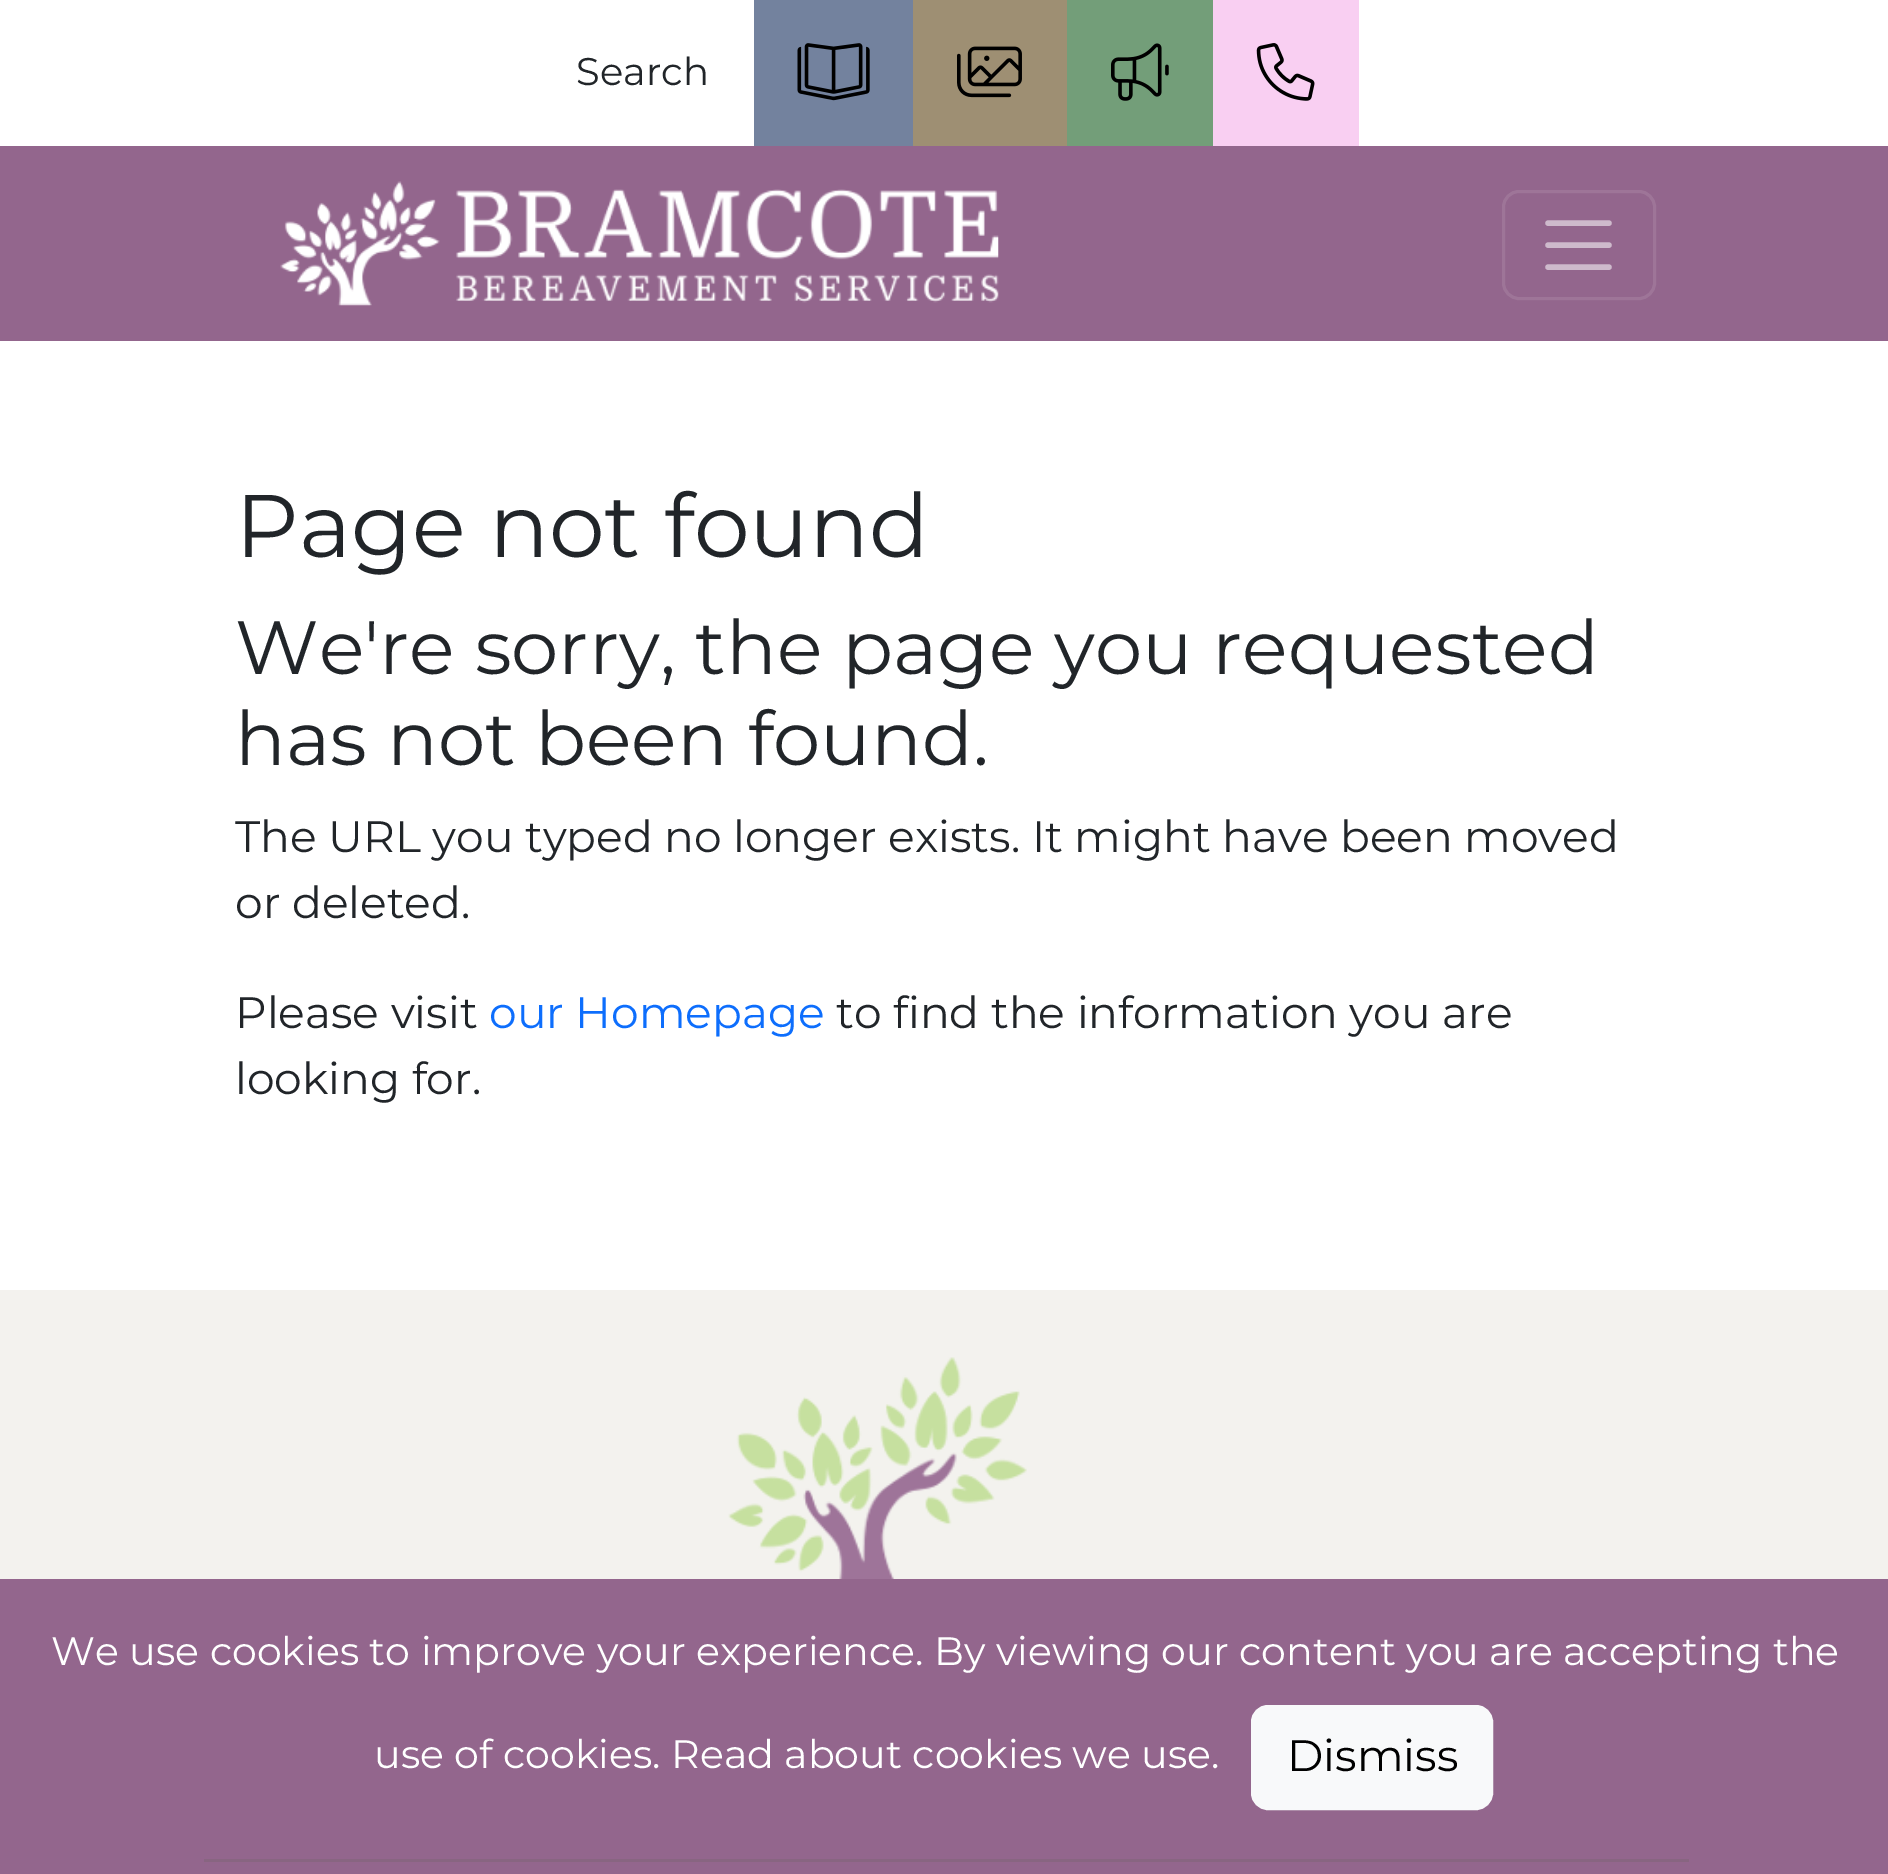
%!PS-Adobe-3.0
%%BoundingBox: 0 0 1888 1874
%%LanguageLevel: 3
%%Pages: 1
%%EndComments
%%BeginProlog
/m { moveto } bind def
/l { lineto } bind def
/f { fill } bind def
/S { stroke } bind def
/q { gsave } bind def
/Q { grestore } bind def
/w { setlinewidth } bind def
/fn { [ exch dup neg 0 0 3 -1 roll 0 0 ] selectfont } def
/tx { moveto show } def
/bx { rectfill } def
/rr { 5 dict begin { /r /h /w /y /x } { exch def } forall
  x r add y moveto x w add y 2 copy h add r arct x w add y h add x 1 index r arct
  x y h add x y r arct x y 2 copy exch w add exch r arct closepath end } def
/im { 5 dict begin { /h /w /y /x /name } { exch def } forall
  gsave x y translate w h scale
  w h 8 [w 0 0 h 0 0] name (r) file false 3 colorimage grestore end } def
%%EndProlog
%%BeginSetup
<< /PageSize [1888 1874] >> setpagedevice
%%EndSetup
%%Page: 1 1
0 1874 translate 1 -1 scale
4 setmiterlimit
1 setgray
0 0 1888 1874 bx
/Montserrat-Thin 38.5 fn
0.129 0.145 0.161 setrgbcolor
(Search) 576 85 tx
0.451 0.51 0.62 setrgbcolor
754 0 159 146 bx
(image0.raw) 797 43 73 58 im
0.62 0.561 0.451 setrgbcolor
913 0 154 146 bx
(image1.raw) 957 46 65 52 im
0.451 0.62 0.475 setrgbcolor
1067 0 146 146 bx
(image2.raw) 1111 43 58 58 im
0.976 0.812 0.949 setrgbcolor
1213 0 146 146 bx
(image3.raw) 1256 43 59 58 im
0.576 0.4 0.553 setrgbcolor
0 146 1888 195 bx
(image4.raw) 280 181 719 125 im
0.62 0.459 0.596 setrgbcolor
3 w
1503.5 191.5 151 107 15.5 rr S
0.808 0.729 0.8 setrgbcolor
5.5 w
1 setlinecap
1548 223 m 1609 223 l 1548 245 m 1609 245 l 1548 267 m 1609 267 l S
/Montserrat-Thin 88.75 fn
0.129 0.145 0.161 setrgbcolor
(Page not found) 235 557 tx
/Montserrat-Thin 75.25 fn
(We're sorry, the page you requested) 235 674 tx
(has not been found.) 235 765 tx
/Montserrat-Thin 44 fn
(The URL you typed no longer exists. It might have been moved) 235 852 tx
(or deleted.) 235 918 tx
(Please visit) 235 1028 tx
0.051 0.431 0.992 setrgbcolor
(our Homepage) 489 1028 tx
0.129 0.145 0.161 setrgbcolor
(to find the information you are) 836 1028 tx
(looking for.) 235 1094 tx
0.953 0.949 0.933 setrgbcolor
0 1290 1888 289 bx
(image5.raw) 728 1357 299 222 im
0.576 0.4 0.553 setrgbcolor
0 1579 1888 295 bx
0.533 0.396 0.506 setrgbcolor
204 1859 1485 3 bx
/Montserrat-Thin 39.6 fn
1 setgray
(We use cookies to improve your experience. By viewing our content you are accepting the) 51 1665 tx
(use of cookies. Read about cookies we use.) 374 1768 tx
0.973 0.976 0.98 setrgbcolor
1252.5 1706.5 239 102 15.5 rr q f Q
3 w
0 setlinecap
S
/Montserrat-Thin 44 fn
0 setgray
(Dismiss) 1287 1771 tx
showpage
%%EOF
